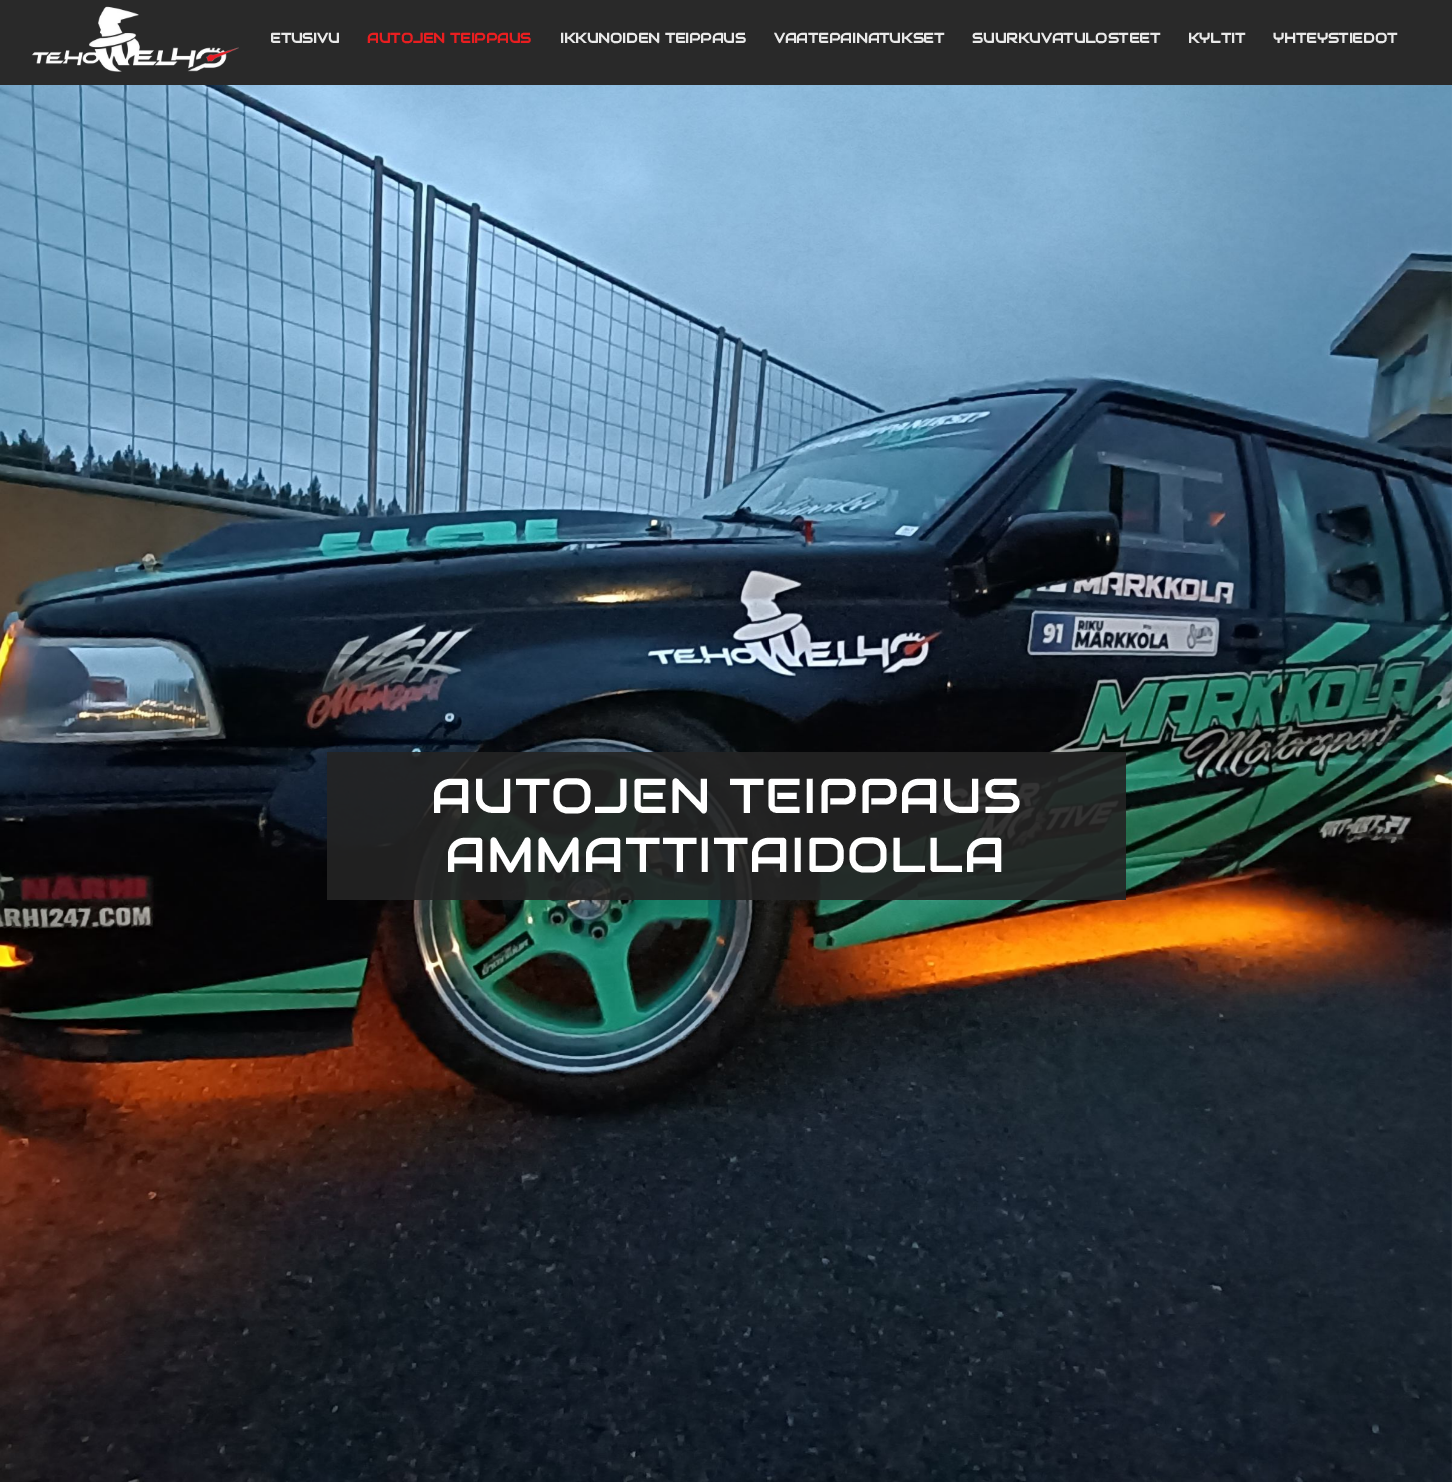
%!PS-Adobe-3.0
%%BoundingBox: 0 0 1452 1482
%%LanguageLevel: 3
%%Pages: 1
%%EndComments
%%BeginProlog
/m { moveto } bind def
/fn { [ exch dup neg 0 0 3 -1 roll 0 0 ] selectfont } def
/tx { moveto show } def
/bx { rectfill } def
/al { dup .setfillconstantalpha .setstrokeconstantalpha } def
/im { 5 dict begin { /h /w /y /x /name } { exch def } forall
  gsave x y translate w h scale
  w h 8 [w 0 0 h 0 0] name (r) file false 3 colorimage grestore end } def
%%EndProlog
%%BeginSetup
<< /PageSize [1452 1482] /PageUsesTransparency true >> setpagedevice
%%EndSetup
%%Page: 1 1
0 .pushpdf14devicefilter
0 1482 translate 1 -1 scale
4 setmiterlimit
1 setgray
0 0 1452 1482 bx
0.161 setgray
0 0 1452 85 bx
(image0.raw) 31 6 208 66 im
/Audiowide-Bold 14 fn
0.914 setgray
(ETUSIVU) 270 43 tx
0.914 0.118 0.125 setrgbcolor
(AUTOJEN TEIPPAUS) 367 43 tx
0.914 setgray
(IKKUNOIDEN TEIPPAUS) 560 43 tx
(VAATEPAINATUKSET) 774 43 tx
(SUURKUVATULOSTEET) 972 43 tx
(KYLTIT) 1188 43 tx
(YHTEYSTIEDOT) 1273 43 tx
(image1.raw) 0 85 1452 1397 im
0.9 al
0.137 setgray
327 752 799 148 bx
/Audiowide-Regular 49 fn
1 al
1 setgray
431 813 m 1 0 (AUTOJEN TEIPPAUS) ashow
445 872 m 1 0 (AMMATTITAIDOLLA) ashow
.poppdf14devicefilter showpage
%%EOF
